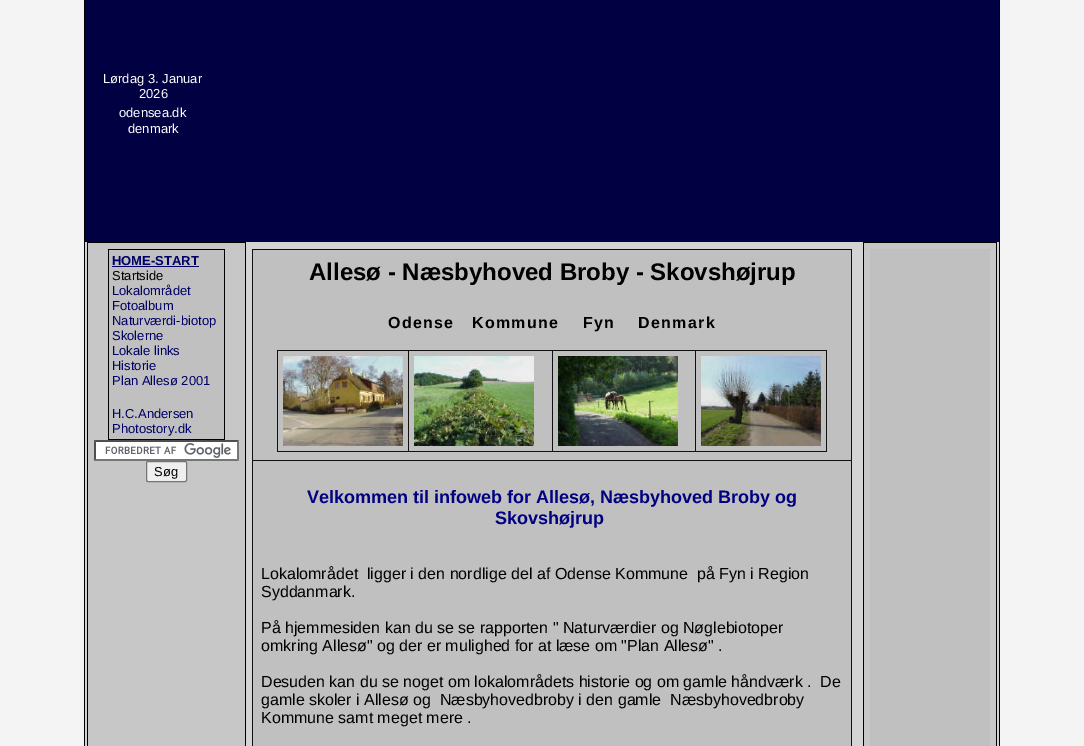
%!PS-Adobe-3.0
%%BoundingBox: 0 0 1084 746
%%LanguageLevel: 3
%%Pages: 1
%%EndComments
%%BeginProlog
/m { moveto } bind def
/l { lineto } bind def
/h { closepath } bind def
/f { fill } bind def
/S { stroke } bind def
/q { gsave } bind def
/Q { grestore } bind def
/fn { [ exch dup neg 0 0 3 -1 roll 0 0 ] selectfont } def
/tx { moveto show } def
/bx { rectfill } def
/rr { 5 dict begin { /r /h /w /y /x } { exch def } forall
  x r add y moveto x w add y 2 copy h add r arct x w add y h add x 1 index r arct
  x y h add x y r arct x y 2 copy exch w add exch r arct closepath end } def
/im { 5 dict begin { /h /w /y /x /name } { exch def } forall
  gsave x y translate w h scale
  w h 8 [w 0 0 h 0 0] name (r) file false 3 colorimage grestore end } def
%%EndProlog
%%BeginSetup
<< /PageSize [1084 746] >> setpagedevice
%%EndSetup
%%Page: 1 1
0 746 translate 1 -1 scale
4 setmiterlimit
0.957 setgray
0 0 1084 746 bx
0.831 setgray
85 242 914 504 bx
0 0 0.259 setrgbcolor
85 0 914 242 bx
/LiberationSans-Regular 13 fn
1 setgray
(Lørdag 3. Januar) 103 83 tx
(2026) 139 98 tx
(odensea.dk) 119 117 tx
(denmark) 128 133 tx
0 setgray
999 0 1 746 bx
84 0 1 746 bx
0.78 setgray
88 243 157 503 bx
0 setgray
87 242 159 1 bx
245 242 1 504 bx
87 242 1 504 bx
0.753 setgray
109 250 115 189 bx
0 setgray
108 249 117 1 bx
224 249 1 191 bx
108 439 117 1 bx
108 249 1 191 bx
/LiberationSans-Bold 13 fn
0 0 0.4 setrgbcolor
(HOME-START) 112 265 tx
112 266 87 1 bx
/LiberationSans-Regular 13 fn
0 setgray
(Startside) 112 280 tx
0 0 0.4 setrgbcolor
(Lokalområdet) 112 295 tx
(Fotoalbum) 112 310 tx
(Naturværdi-biotop) 112 325 tx
(Skolerne) 112 340 tx
(Lokale links) 112 355 tx
(Historie) 112 370 tx
(Plan Allesø 2001) 112 385 tx
(H.C.Andersen) 112 418 tx
(Photostory.dk) 112 433 tx
1 setgray
94 440 145 21 bx
(image0.raw) 105 443 126 15 im
0.31 setgray
94 440 m 239 440 l 237 442 l 96 442 l h f
0.463 setgray
239 440 m 239 461 l 237 459 l 237 442 l h f
239 461 m 94 461 l 96 459 l 237 459 l h f
0.31 setgray
94 461 m 94 440 l 96 442 l 96 459 l h f
0.937 setgray
146.5 461.5 40 20 1.5 rr q f Q
0.463 setgray
S
0 setgray
(Søg) 154 476 tx
0.753 setgray
253 250 598 496 bx
0.067 setgray
252 249 600 1 bx
851 249 1 497 bx
252 249 1 497 bx
/LiberationSans-Bold 24 fn
0 setgray
(Allesø - Næsbyhoved Broby - Skovshøjrup) 309 280 tx
/LiberationSans-Bold 16 fn
388 328 m 1.3 0 (Odense   Kommune) ashow
583 328 m 1.3 0 (Fyn    Denmark) ashow
0.067 setgray
277 350 550 1 bx
826 350 1 102 bx
277 451 550 1 bx
277 350 1 102 bx
(image1.raw) 283 356 120 90 im
408 350 1 102 bx
(image2.raw) 414 356 120 90 im
552 350 1 102 bx
(image3.raw) 558 356 120 90 im
695 350 1 102 bx
(image4.raw) 701 356 120 90 im
252 460 600 1 bx
/LiberationSans-Bold 18 fn
0 0 0.502 setrgbcolor
(Velkommen til infoweb for Allesø, Næsbyhoved Broby og) 307 503 tx
(Skovshøjrup) 495 524 tx
/LiberationSans-Regular 16 fn
0 setgray
(Lokalområdet  ligger i den nordlige del af Odense Kommune  på Fyn i Region) 261 579 tx
(Syddanmark.) 261 597 tx
(På hjemmesiden kan du se se rapporten " Naturværdier og Nøglebiotoper) 261 633 tx
(omkring Allesø" og der er mulighed for at læse om "Plan Allesø" .) 261 651 tx
(Desuden kan du se noget om lokalområdets historie og om gamle håndværk .  De) 261 687 tx
(gamle skoler i Allesø og  Næsbyhovedbroby i den gamle  Næsbyhovedbroby) 261 705 tx
(Kommune samt meget mere .) 261 723 tx
0.78 setgray
864 243 132 503 bx
0 setgray
863 242 134 1 bx
996 242 1 504 bx
863 242 1 504 bx
0.753 setgray
870 249 120 497 bx
showpage
%%EOF
